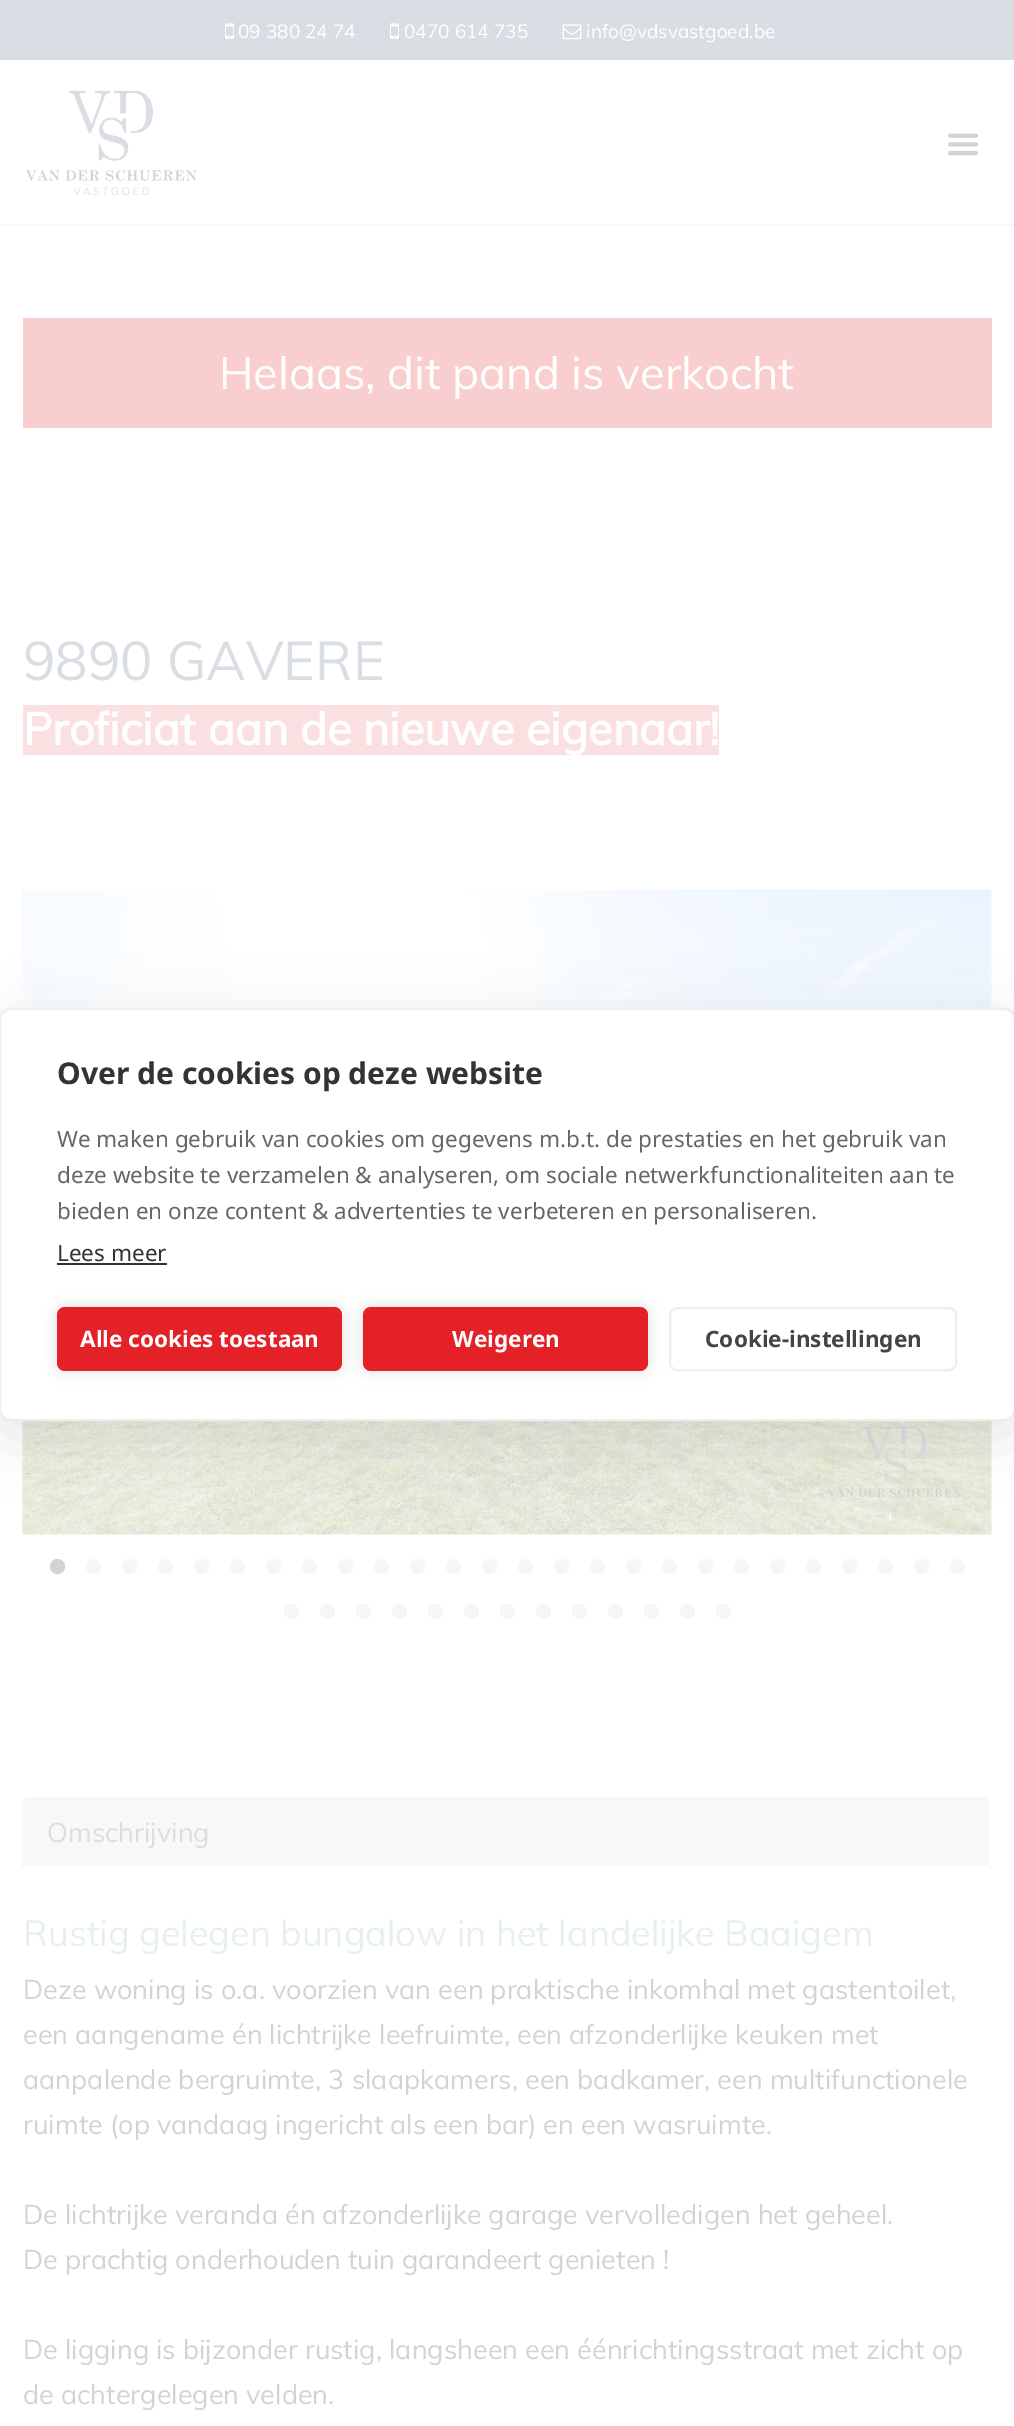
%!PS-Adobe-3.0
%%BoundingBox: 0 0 1014 2426
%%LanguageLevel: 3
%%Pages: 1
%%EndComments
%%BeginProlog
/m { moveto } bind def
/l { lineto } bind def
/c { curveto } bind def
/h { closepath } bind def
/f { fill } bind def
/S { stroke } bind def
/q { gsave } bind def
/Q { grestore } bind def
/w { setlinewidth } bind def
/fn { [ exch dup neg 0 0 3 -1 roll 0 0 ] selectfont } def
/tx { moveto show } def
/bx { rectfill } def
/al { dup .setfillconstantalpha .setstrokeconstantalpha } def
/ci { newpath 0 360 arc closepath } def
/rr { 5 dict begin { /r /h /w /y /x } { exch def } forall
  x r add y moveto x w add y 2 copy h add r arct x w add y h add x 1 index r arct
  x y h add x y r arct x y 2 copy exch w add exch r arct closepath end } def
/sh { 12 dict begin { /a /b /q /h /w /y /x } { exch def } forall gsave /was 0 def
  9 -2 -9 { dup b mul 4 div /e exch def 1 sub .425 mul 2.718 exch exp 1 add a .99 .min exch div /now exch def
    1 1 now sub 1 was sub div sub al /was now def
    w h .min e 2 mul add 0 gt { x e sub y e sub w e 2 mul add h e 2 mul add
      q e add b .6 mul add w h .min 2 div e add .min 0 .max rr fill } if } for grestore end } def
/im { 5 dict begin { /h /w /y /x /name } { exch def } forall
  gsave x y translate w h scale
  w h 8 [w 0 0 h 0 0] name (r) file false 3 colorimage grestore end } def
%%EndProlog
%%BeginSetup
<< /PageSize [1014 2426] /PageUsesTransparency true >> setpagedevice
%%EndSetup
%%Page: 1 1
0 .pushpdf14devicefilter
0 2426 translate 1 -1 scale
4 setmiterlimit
1 setgray
0 0 1014 2426 bx
0.851 0.867 0.894 setrgbcolor
0 0 1014 60 bx
(image0.raw) 225 23 9 16 im
/Muli-Regular 19 fn
1 setgray
(09 380 24 74) 238 38 tx
(image0.raw) 390 23 9 16 im
(0470 614 735) 404 38 tx
(image1.raw) 562 24 20 16 im
(info@vdsvastgoed.be) 586 38 tx
0.973 setgray
0 224 1014 2 bx
(image2.raw) 25 90 172 105 im
(image3.raw) 948 133 31 23 im
0.976 0.808 0.808 setrgbcolor
23 318 969 110 bx
/Muli-Regular 45 fn
1 setgray
(Helaas, dit pand is verkocht) 219 389 tx
/Muli-Regular 54 fn
0.851 0.867 0.894 setrgbcolor
(9890 GAVERE) 23 680 tx
0.98 0.878 0.882 setrgbcolor
23 705 696 50 bx
/Muli-Bold 45 fn
1 setgray
(Proficiat aan de nieuwe eigenaar!) 23 745 tx
(image4.raw) 22 889 970 646 im
0.827 setgray
57.5 1566.5 7.5 ci f
0.973 0.965 0.957 setrgbcolor
93.5 1566.5 7.5 ci f
129.5 1566.5 7.5 ci f
165.5 1566.5 7.5 ci f
201.5 1566.5 7.5 ci f
237.5 1566.5 7.5 ci f
273.5 1566.5 7.5 ci f
309.5 1566.5 7.5 ci f
345.5 1566.5 7.5 ci f
381.5 1566.5 7.5 ci f
417.5 1566.5 7.5 ci f
453.5 1566.5 7.5 ci f
489.5 1566.5 7.5 ci f
525.5 1566.5 7.5 ci f
561.5 1566.5 7.5 ci f
597.5 1566.5 7.5 ci f
633.5 1566.5 7.5 ci f
669.5 1566.5 7.5 ci f
705.5 1566.5 7.5 ci f
741.5 1566.5 7.5 ci f
777.5 1566.5 7.5 ci f
813.5 1566.5 7.5 ci f
849.5 1566.5 7.5 ci f
885.5 1566.5 7.5 ci f
921.5 1566.5 7.5 ci f
957.5 1566.5 7.5 ci f
291.5 1611.5 7.5 ci f
327.5 1611.5 7.5 ci f
363.5 1611.5 7.5 ci f
399.5 1611.5 7.5 ci f
435.5 1611.5 7.5 ci f
471.5 1611.5 7.5 ci f
507.5 1611.5 7.5 ci f
543.5 1611.5 7.5 ci f
579.5 1611.5 7.5 ci f
615.5 1611.5 7.5 ci f
651.5 1611.5 7.5 ci f
687.5 1611.5 7.5 ci f
723.5 1611.5 7.5 ci f
0.973 setgray
989 1866 3 2 bx
29 1797 m 983 1797 l 986.5 1797 989 1799.5 989 1803 c 989 1868 l 23 1868 l 23 1803 l 23 1799.5 25.5 1797 29 1797 c h f
1 setgray
988 1867 m 988 1868 l 22 1868 l 24 1866 l 987 1866 l h f
0.973 setgray
22 1868 m 22 1801 l 24 1799 l 25 1800 l 24 1801 24 1802 24 1803 c 24 1866 l h f
/Muli-Regular 27 fn
0.867 setgray
(Omschrijving) 47 1842 tx
/Muli-Regular 36 fn
0.902 0.941 0.953 setrgbcolor
(Rustig gelegen bungalow in het landelijke Baaigem) 23 1946 tx
/Muli-Regular 27 fn
0.827 setgray
(Deze woning is o.a. voorzien van een praktische inkomhal met gastentoilet,) 23 1999 tx
(een aangename én lichtrijke leefruimte, een afzonderlijke keuken met) 23 2044 tx
(aanpalende bergruimte, 3 slaapkamers, een badkamer, een multifunctionele) 23 2089 tx
(ruimte \(op vandaag ingericht als een bar\) en een wasruimte.) 23 2134 tx
(De lichtrijke veranda én afzonderlijke garage vervolledigen het geheel.) 23 2224 tx
(De prachtig onderhouden tuin garandeert genieten !) 23 2269 tx
(De ligging is bijzonder rustig, langsheen een éénrichtingsstraat met zicht op) 23 2359 tx
(de achtergelegen velden.) 23 2404 tx
0 setgray
-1 1023 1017 413 12 30 0.1 sh
1 setgray
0 1009 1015 411 11 rr q f Q
0.933 setgray
2 w
S
/NotoSans-Bold 30 fn
0.2 setgray
(Over de cookies op deze website) 57 1084 tx
/NotoSans-Regular 22.5 fn
0.4 setgray
(We maken gebruik van cookies om gegevens m.b.t. de prestaties en het gebruik van) 57 1147 tx
(deze website te verzamelen & analyseren, om sociale netwerkfunctionaliteiten aan te) 57 1183 tx
(bieden en onze content & advertenties te verbeteren en personaliseren.) 57 1219 tx
0.2 setgray
(Lees meer) 57 1261 tx
57 1263 110 2 bx
0 setgray
57 1307 285 64 8 7.5 0.12 sh
0.894 0.129 0.153 setrgbcolor
57 1307 285 64 8 rr f
/NotoSans-Bold 22.5 fn
1 setgray
(Alle cookies toestaan) 80 1347 tx
0 setgray
363 1307 285 64 8 7.5 0.12 sh
0.894 0.129 0.153 setrgbcolor
363 1307 285 64 8 rr f
1 setgray
(Weigeren) 452 1347 tx
0.933 setgray
670 1308 286 62 7 rr S
0.267 setgray
(Cookie-instellingen) 705 1347 tx
.poppdf14devicefilter showpage
%%EOF
